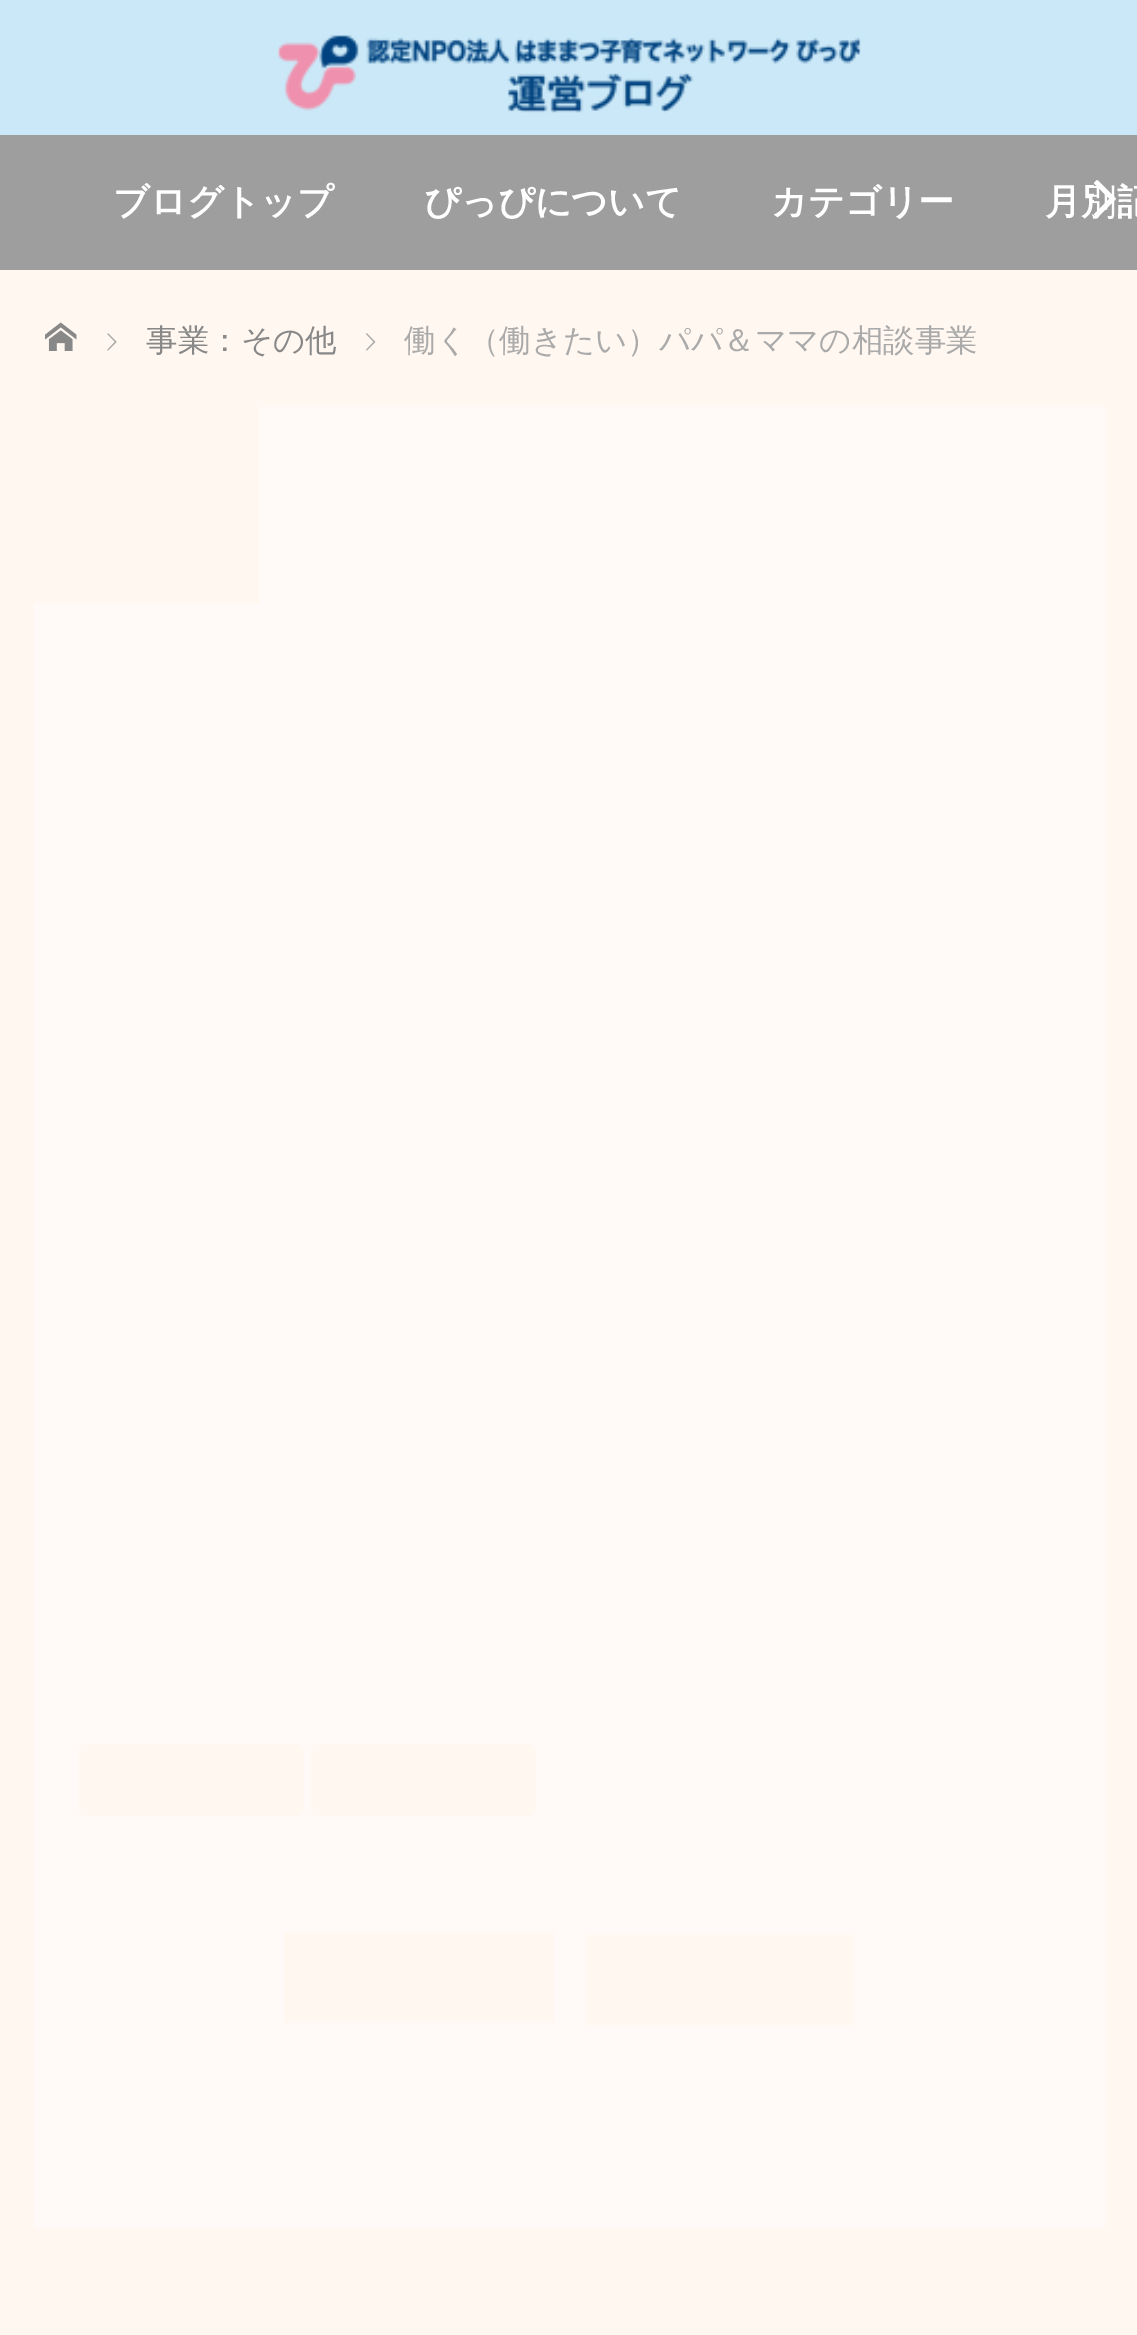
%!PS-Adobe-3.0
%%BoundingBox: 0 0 1137 2335
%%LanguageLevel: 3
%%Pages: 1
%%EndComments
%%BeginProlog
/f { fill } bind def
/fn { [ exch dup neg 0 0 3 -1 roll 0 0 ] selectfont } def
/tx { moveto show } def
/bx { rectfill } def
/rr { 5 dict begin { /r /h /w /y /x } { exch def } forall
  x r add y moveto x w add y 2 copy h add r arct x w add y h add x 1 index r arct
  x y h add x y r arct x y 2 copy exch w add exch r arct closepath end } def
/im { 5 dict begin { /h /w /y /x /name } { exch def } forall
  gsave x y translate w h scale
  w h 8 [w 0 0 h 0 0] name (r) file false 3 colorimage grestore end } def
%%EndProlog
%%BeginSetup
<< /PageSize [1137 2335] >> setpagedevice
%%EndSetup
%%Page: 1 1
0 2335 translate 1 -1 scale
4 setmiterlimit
1 0.969 0.941 setrgbcolor
0 0 1137 2335 bx
0.792 0.91 0.969 setrgbcolor
0 0 1137 135 bx
(image0.raw) 277 35 584 78 im
0.62 setgray
0 135 1137 135 bx
/WenQuanYiZenHei-Bold 36 fn
1 setgray
(月別記) 1045 214 tx
(image1.raw) 1094 180 22 38 im
(ブログトップ) 113 214 tx
(ぴっぴについて) 424 214 tx
(カテゴリー) 771 214 tx
(image2.raw) 45 322 32 29 im
(image3.raw) 107 333 10 18 im
/WenQuanYiZenHei-Medium 31.5 fn
0.533 setgray
(事業：その他) 146 351 tx
(image4.raw) 366 333 10 18 im
0.667 setgray
(働く（働きたい）パパ＆ママの相談事業) 404 351 tx
1 0.98 0.969 setrgbcolor
34 407 1071 1821 bx
1 0.969 0.941 setrgbcolor
34 407 225 196 bx
79 1744 225 72 7 rr f
311 1744 225 72 7 rr f
284 1933 270 90 bx
585 1935 270 90 bx
showpage
%%EOF
